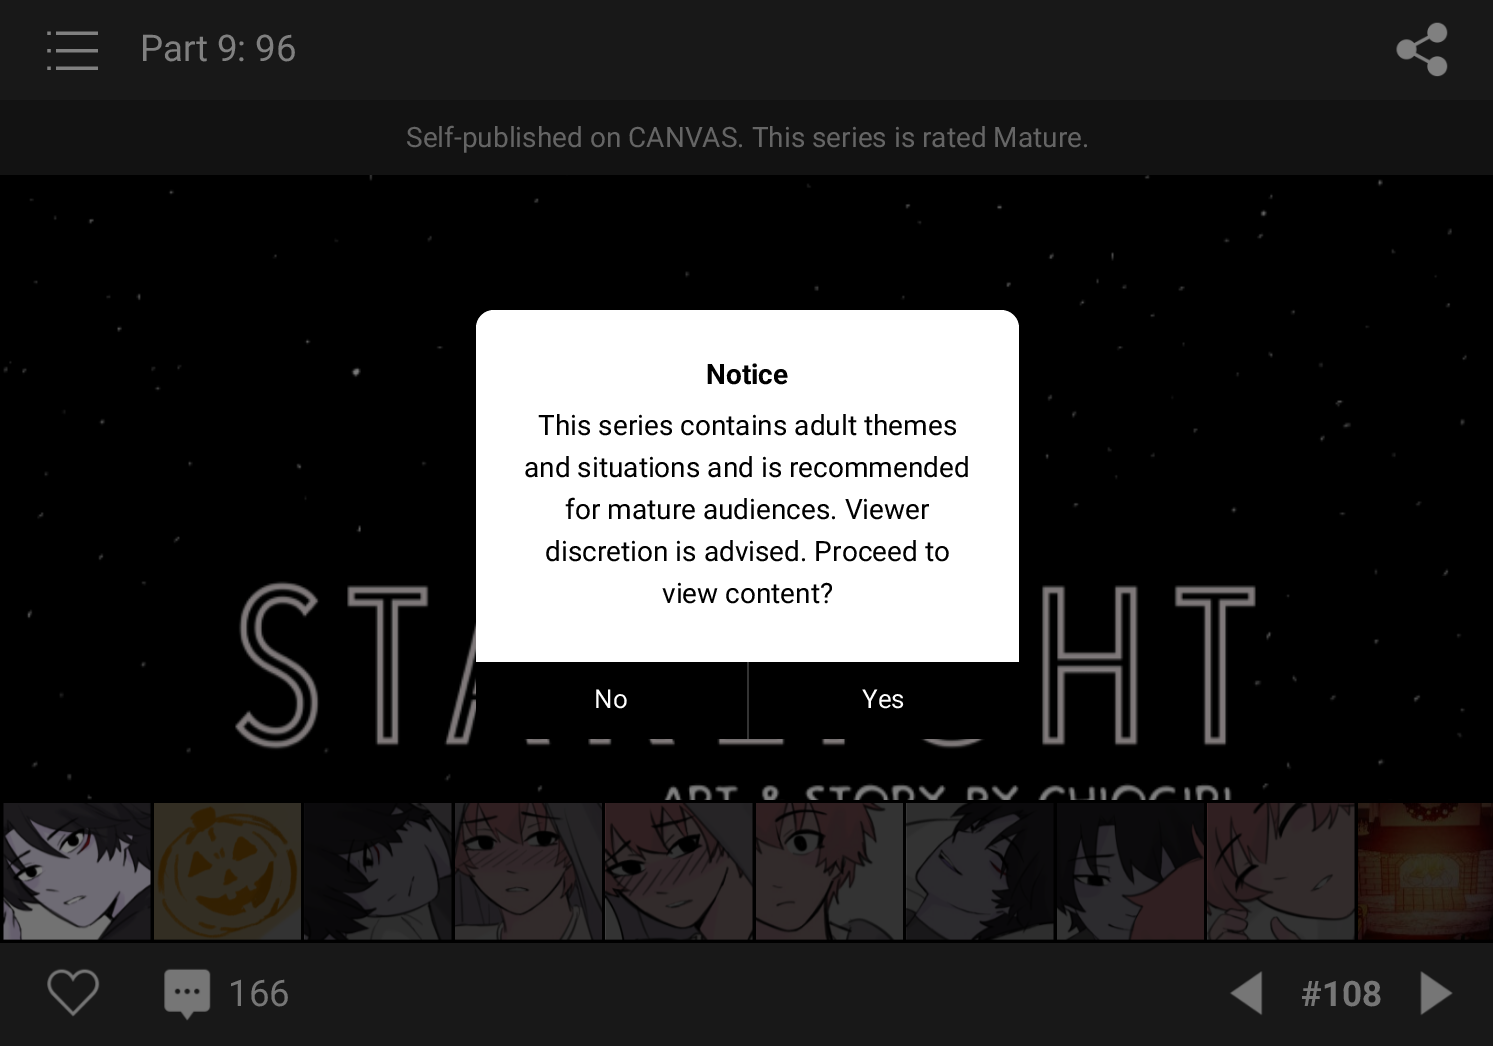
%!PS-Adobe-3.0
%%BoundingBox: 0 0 1493 1046
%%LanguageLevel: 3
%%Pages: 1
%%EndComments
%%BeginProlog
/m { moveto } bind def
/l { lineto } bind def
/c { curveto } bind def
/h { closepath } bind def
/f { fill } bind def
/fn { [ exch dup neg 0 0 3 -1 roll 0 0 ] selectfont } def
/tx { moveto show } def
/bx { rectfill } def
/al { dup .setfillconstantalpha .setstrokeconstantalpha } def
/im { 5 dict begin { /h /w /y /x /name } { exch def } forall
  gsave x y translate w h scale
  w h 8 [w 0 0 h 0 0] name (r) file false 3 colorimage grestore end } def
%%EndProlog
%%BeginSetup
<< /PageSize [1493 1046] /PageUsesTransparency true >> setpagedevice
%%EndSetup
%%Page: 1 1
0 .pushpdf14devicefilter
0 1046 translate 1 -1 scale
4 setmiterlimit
1 setgray
0 0 1493 1046 bx
0.094 setgray
0 0 1493 100 bx
(image0.raw) 47 31 51 39 im
/Roboto-Regular 36.75 fn
0.502 setgray
(Part 9: 96) 140 61 tx
(image1.raw) 1396 22 52 55 im
0.071 setgray
0 100 1493 75 bx
/Roboto-Regular 28 fn
0.396 setgray
(Self-published on CANVAS. This series is rated Mature.) 406 147 tx
(image2.raw) 0 175 1493 625 im
0.094 setgray
0 943 1493 103 bx
0 setgray
0 800 1493 143 bx
(image3.raw) 3 803 148 137 im
(image4.raw) 154 803 147 137 im
0.6 al
154 803 147 137 bx
1 al
(image5.raw) 304 803 148 137 im
0.6 al
305 803 147 137 bx
1 al
(image6.raw) 455 803 147 137 im
0.6 al
455 803 147 137 bx
1 al
(image7.raw) 605 803 148 137 im
0.6 al
606 803 147 137 bx
1 al
(image8.raw) 756 803 147 137 im
0.6 al
756 803 147 137 bx
1 al
(image9.raw) 906 803 148 137 im
0.6 al
907 803 147 137 bx
1 al
(image10.raw) 1057 803 147 137 im
0.6 al
1057 803 147 137 bx
1 al
(image11.raw) 1207 803 148 137 im
0.6 al
1208 803 147 137 bx
1 al
(image12.raw) 1358 803 135 137 im
0.6 al
1358 803 135 137 bx
1 al
(image13.raw) 47 968 53 49 im
(image14.raw) 164 968 47 53 im
/Roboto-Regular 36.75 fn
0.463 setgray
(166) 228 1006 tx
(image15.raw) 1229 971 34 45 im
/Roboto-Bold 35 fn
(#108) 1301 1006 tx
(image16.raw) 1420 971 33 45 im
1 setgray
494 310 m 1001 310 l 1011 310 1019 318 1019 328 c 1019 662 l 476 662 l 476 328 l 476 318 484 310 494 310 c h f
/Roboto-Bold 28 fn
0 setgray
(Notice) 706 384 tx
/Roboto-Regular 28 fn
(This series contains adult themes) 538 435 tx
(and situations and is recommended) 524 477 tx
(for mature audiences. Viewer) 565 519 tx
(discretion is advised. Proceed to) 545 561 tx
(view content?) 662 603 tx
476 662 m 1019 662 l 1019 721 l 1019 731 1011 739 1001 739 c 494 739 l 484 739 476 731 476 721 c h f
/Roboto-Regular 26 fn
1 setgray
(No) 594 708 tx
0.2 setgray
747 662 2 77 bx
1 setgray
(Yes) 862 708 tx
.poppdf14devicefilter showpage
%%EOF
